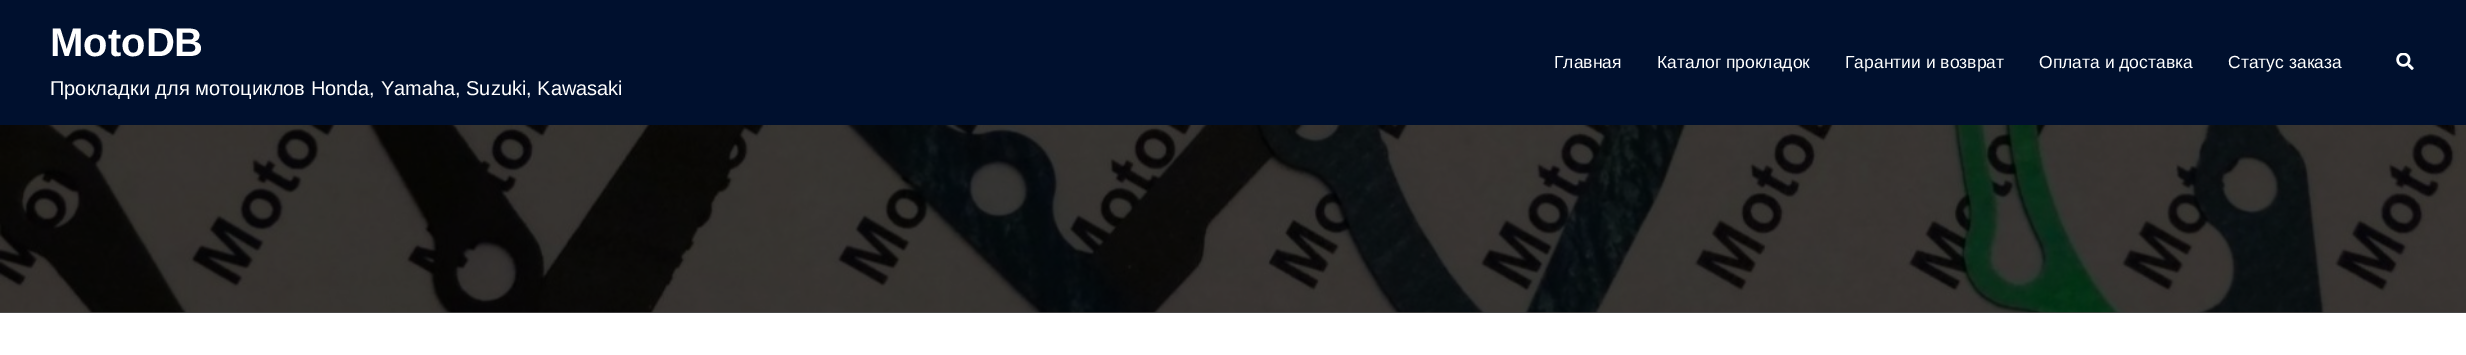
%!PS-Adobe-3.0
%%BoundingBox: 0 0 2466 355
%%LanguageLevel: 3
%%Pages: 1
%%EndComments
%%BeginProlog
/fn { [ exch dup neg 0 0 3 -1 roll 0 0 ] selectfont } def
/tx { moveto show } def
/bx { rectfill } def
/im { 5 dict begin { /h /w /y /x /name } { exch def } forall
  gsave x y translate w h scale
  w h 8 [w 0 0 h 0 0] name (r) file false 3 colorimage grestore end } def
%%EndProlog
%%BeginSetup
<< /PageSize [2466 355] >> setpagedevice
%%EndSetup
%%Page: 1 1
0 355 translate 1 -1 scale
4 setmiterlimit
1 setgray
0 0 2466 355 bx
0.302 setgray
0 312 2466 1 bx
0 0.063 0.18 setrgbcolor
0 0 2466 125 bx
/LiberationSans-Bold 40 fn
1 setgray
(MotoDB) 50 56 tx
/LiberationSans-Regular 20 fn
(Прокладки для мотоциклов Honda, Yamaha, Suzuki, Kawasaki) 50 95 tx
/LiberationSans-Regular 17.5 fn
(Главная) 1554 68 tx
(Каталог прокладок) 1657 68 tx
(Гарантии и возврат) 1845 68 tx
(Оплата и доставка) 2039 68 tx
(Статус заказа) 2228 68 tx
(image0.raw) 2396 53 18 17 im
(image1.raw) 0 125 2466 188 im
showpage
%%EOF
